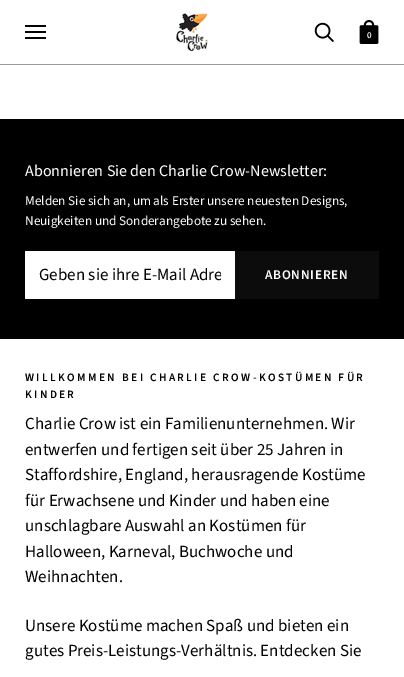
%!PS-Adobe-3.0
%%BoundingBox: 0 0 404 677
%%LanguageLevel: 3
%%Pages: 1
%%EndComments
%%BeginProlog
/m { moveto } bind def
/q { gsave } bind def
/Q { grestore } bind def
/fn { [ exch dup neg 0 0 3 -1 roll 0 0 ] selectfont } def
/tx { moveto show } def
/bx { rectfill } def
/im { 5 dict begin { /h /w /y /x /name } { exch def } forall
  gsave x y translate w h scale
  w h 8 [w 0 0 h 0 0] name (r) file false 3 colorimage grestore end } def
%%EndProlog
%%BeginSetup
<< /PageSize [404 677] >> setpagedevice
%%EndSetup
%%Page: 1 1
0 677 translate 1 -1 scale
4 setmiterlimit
1 setgray
0 0 404 677 bx
0.6 setgray
0 64 404 1 bx
0 setgray
25 25 21 2 bx
25 31 21 2 bx
25 37 21 2 bx
(image0.raw) 176 12 33 40 im
(image1.raw) 314 22 20 20 im
(image2.raw) 359 20 20 24 im
/SourceSansPro-SemiBold 9 fn
1 setgray
(0) 367 38 tx
0 setgray
0 119 404 220 bx
/SourceSansPro-Regular 16.1 fn
1 setgray
(Abonnieren Sie den Charlie Crow-Newsletter:) 25 176 tx
/SourceSansPro-Regular 13.25 fn
(Melden Sie sich an, um als Erster unsere neuesten Designs,) 25 205 tx
(Neuigkeiten und Sonderangebote zu sehen.) 25 225 tx
25 251 210 48 bx
q
39 263 182 24 rectclip
/SourceSansPro-Regular 17 fn
0 setgray
(Geben sie ihre E-Mail Adre) 39 280 tx
Q
0.047 0.047 0.051 setrgbcolor
235 251 144 48 bx
/SourceSansPro-SemiBold 13.25 fn
1 setgray
265 279 m 0.75 0 (ABONNIEREN) ashow
/SourceSansPro-SemiBold 11.3 fn
0 setgray
25 381 m 2.4 0 (WILLKOMMEN BEI CHARLIE CROW-KOSTÜMEN FÜR) ashow
25 398 m 2.4 0 (KINDER) ashow
/SourceSansPro-Regular 17 fn
(Charlie Crow ist ein Familienunternehmen. Wir) 25 429 tx
(entwerfen und fertigen seit über 25 Jahren in) 25 455 tx
(Staffordshire, England, herausragende Kostüme) 25 480 tx
(für Erwachsene und Kinder und haben eine) 25 506 tx
(unschlagbare Auswahl an Kostümen für) 25 531 tx
(Halloween, Karneval, Buchwoche und) 25 557 tx
(Weihnachten.) 25 582 tx
(Unsere Kostüme machen Spaß und bieten ein) 25 631 tx
(gutes Preis-Leistungs-Verhältnis. Entdecken Sie) 25 656 tx
showpage
%%EOF
